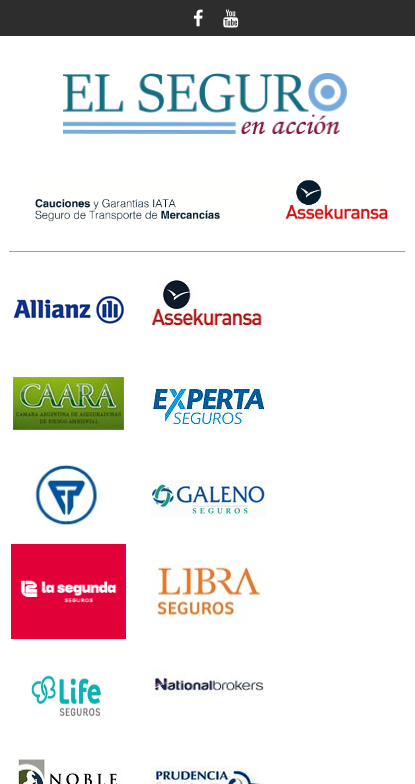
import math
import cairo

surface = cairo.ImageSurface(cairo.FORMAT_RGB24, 415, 784)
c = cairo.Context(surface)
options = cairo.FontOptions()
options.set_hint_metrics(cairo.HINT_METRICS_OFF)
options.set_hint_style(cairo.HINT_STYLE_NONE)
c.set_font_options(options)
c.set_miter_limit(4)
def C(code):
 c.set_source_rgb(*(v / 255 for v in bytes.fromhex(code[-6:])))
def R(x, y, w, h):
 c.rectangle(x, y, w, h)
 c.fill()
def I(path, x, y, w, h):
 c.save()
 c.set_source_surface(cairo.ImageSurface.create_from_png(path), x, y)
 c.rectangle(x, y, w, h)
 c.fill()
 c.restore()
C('ffffff')
c.paint()
C('2d2d2d')
R(0,0,415,36)
I('1.png',193,9,10,18)
I('2.png',223,9,16,19)
I('3.png',63,73,284,61)
I('4.png',35,179,353,43)
C('9f9f9f')
R(9,251,397,1)
C('eeeeee')
R(405,251,1,1)
I('5.png',12,295,112,29)
I('6.png',151,275,114,64)
I('7.png',11,370,115,64)
I('8.png',151,386,115,40)
I('9.png',30,464,76,64)
I('10.png',151,481,115,40)
I('11.png',11,544,115,95)
I('12.png',151,560,112,63)
I('13.png',31,674,70,43)
I('14.png',151,668,113,29)
I('15.png',16,759,106,25)
I('16.png',151,766,115,18)
surface.write_to_png('o.png')
